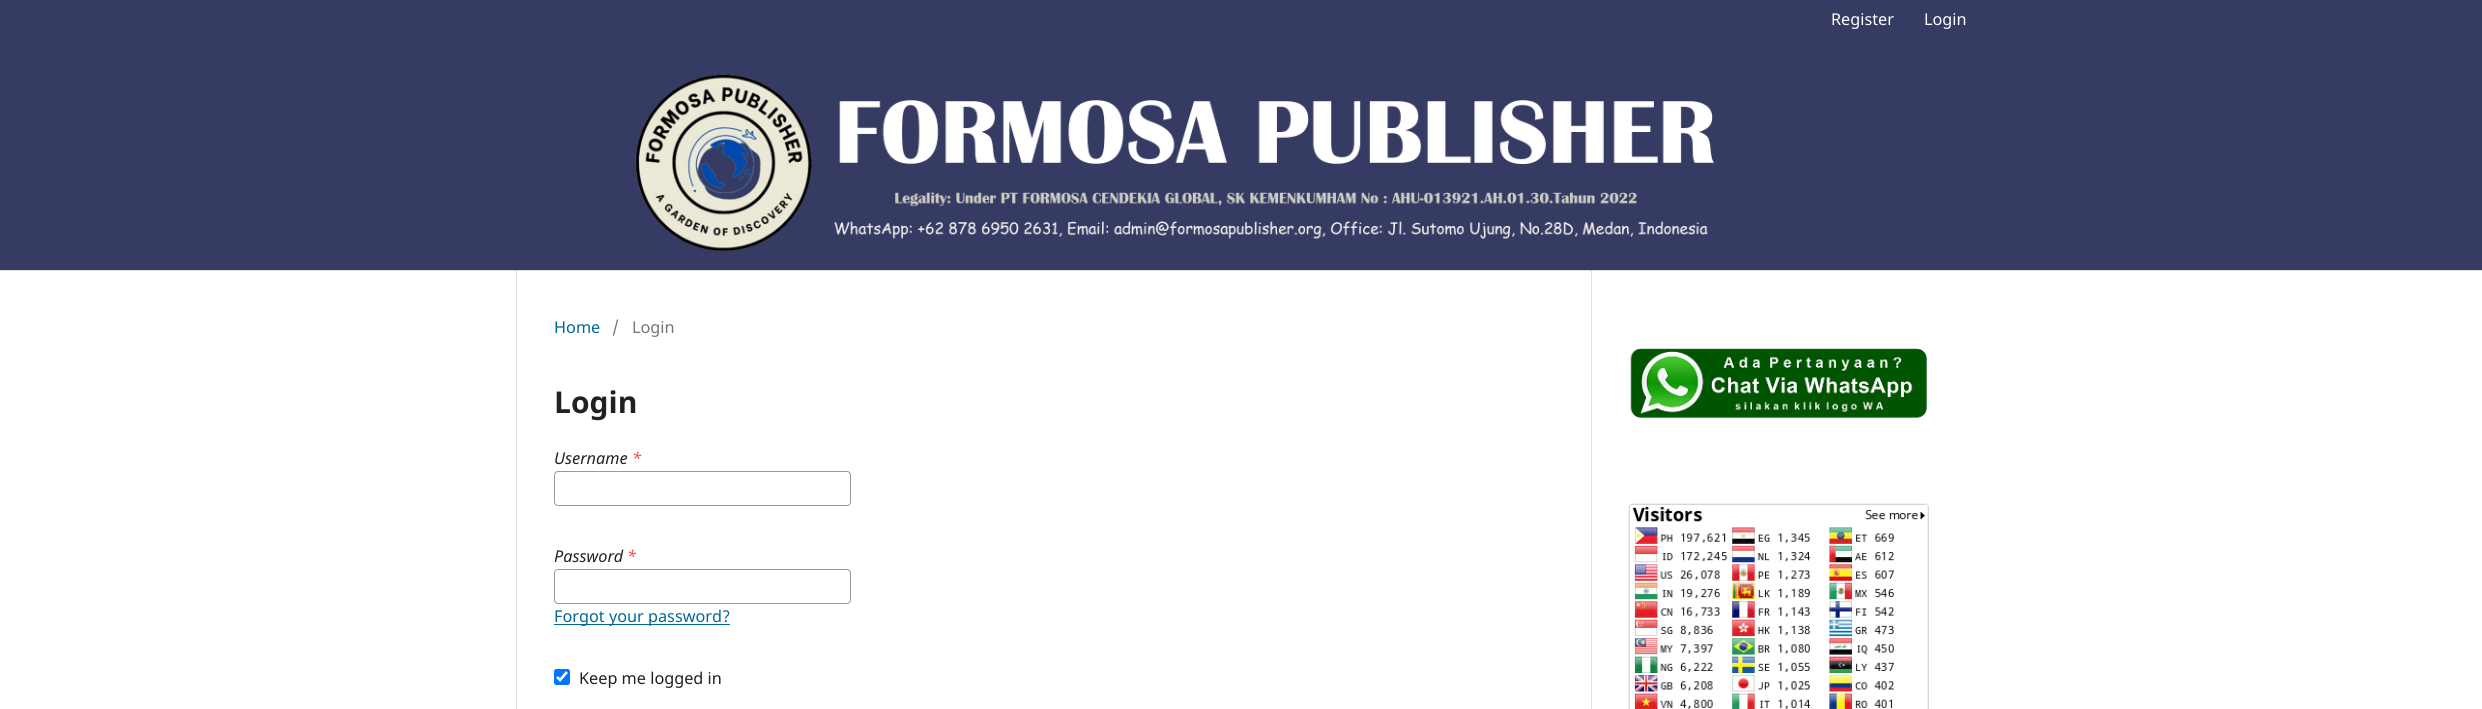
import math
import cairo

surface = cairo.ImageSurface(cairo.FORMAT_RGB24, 2482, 709)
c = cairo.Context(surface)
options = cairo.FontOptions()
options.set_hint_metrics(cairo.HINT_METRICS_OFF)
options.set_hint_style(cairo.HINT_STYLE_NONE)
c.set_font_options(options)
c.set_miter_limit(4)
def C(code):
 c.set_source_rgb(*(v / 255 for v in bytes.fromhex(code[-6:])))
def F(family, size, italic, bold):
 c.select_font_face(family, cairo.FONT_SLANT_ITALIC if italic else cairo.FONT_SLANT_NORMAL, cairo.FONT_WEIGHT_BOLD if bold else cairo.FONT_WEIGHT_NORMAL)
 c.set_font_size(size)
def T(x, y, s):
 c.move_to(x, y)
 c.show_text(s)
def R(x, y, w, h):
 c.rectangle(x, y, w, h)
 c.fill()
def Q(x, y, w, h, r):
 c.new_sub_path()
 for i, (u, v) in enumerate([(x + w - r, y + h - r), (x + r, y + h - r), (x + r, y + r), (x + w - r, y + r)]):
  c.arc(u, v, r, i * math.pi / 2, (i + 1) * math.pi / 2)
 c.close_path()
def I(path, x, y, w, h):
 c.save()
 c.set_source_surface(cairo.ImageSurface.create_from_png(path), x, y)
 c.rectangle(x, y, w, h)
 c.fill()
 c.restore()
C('ffffff')
c.paint()
C('363b63')
R(0,0,2482,270)
C('dddddd')
R(0,270,2482,1)
F('Noto Sans',16.25,0,0)
C('ffffff')
T(1831,25,'Register')
T(1924,25,'Login')
I('1.png',635,74,1079,178)
C('dddddd')
R(516,271,1,438)
C('006798')
T(554,333,'Home')
C('757575')
T(612,333,'/')
T(632,333,'Login')
F('Noto Sans',30,0,1)
C('212121')
T(554,413,'Login')
F('Noto Sans',16.25,1,0)
T(554,464,'Username')
C('ff4040')
T(632,464,'*')
Q(554.5,471.5,296,34,3.5)
C('999999')
c.set_line_width(1)
c.stroke()
C('212121')
T(554,562,'Password')
C('ff4040')
T(627,562,'*')
Q(554.5,569.5,296,34,3.5)
C('999999')
c.stroke()
C('006798')
R(554,624,176,1)
F('Noto Sans',16.25,0,0)
T(554,622,'Forgot your password?')
C('0075ff')
Q(554,669,16,16,2.5)
c.fill()
c.new_path()
c.move_to(557,677)
c.line_to(560,680)
c.line_to(567,672)
C('ffffff')
c.set_line_width(2.6)
c.stroke()
C('212121')
T(579,684,'Keep me logged in')
C('dddddd')
R(1591,271,1,438)
I('2.png',1630,348,297,70)
I('3.png',1628,503,301,206)
surface.write_to_png('o.png')
